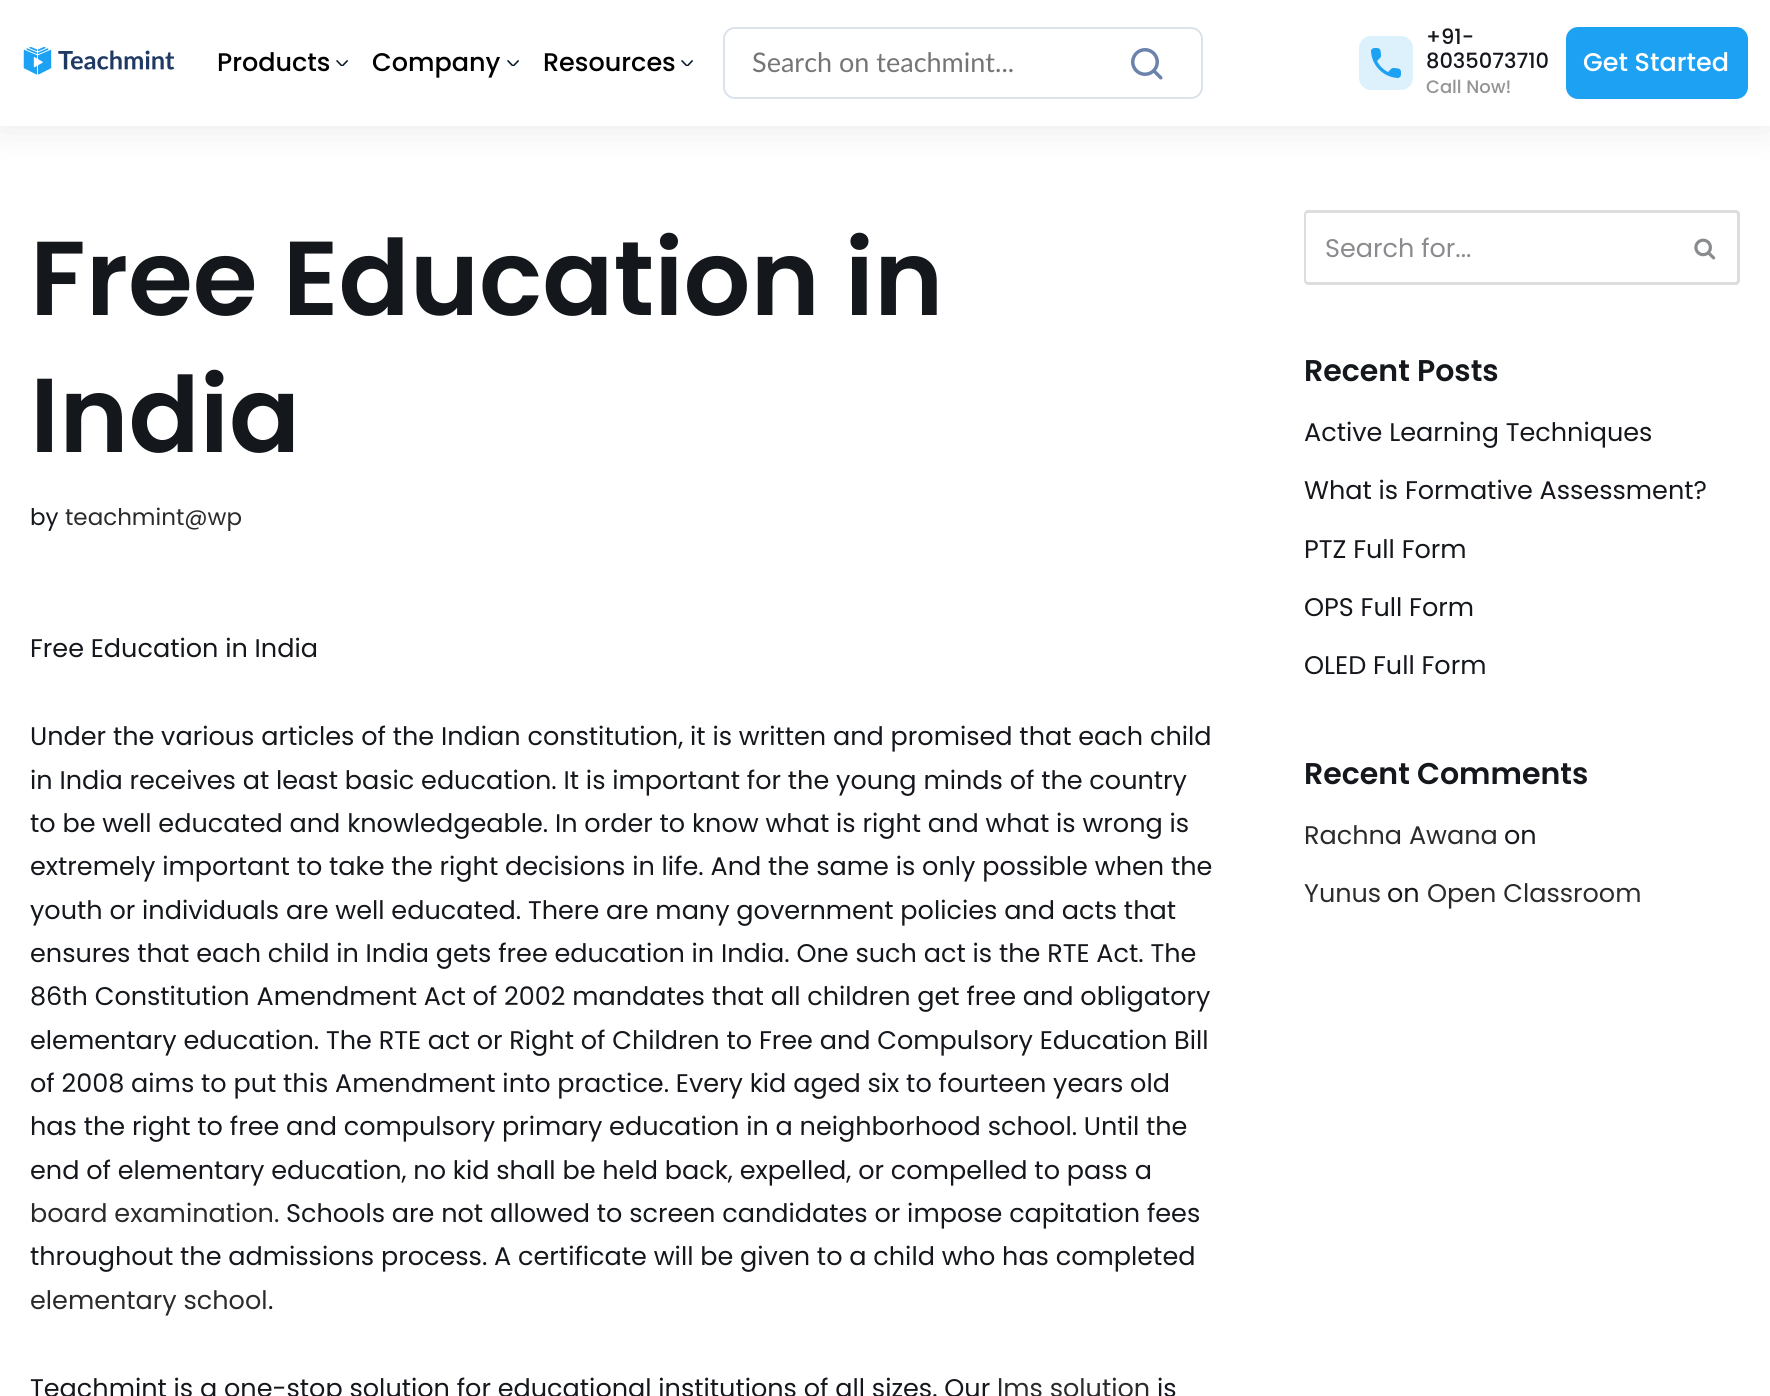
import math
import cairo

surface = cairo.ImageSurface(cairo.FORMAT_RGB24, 1770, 1396)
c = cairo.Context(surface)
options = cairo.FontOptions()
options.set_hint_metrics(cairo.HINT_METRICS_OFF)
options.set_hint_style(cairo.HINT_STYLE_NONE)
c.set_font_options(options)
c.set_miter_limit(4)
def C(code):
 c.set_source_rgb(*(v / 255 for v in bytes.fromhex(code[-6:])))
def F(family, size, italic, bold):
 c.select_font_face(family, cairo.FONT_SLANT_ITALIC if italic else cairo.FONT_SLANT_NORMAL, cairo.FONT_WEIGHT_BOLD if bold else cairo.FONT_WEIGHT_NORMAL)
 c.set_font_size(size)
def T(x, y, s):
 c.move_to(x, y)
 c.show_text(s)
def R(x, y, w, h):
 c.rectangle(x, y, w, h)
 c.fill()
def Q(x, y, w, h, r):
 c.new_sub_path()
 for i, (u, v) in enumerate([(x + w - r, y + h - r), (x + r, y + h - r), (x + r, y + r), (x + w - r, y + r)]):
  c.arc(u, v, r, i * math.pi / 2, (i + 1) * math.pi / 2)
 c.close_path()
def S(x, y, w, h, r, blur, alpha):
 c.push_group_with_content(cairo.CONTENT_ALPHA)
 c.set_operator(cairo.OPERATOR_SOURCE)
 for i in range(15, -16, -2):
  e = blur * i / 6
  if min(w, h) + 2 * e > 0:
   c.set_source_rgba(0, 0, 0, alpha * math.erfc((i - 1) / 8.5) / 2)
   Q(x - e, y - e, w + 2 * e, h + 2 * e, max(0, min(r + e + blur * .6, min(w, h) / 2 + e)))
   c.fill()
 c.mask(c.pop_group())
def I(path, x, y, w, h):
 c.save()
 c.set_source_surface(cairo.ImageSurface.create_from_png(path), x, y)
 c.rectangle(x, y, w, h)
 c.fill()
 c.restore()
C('ffffff')
c.paint()
C('000000')
S(0,5,1770,120,0,19.5,.1)
C('ffffff')
R(0,0,1770,126)
I('1.png',23,47,152,28)
F('Poppins Medium',25.5,0,0)
C('000000')
T(217,71,'Products')
I('2.png',336,60,12,6)
T(372,71,'Company')
I('2.png',507,60,12,6)
T(543,71,'Resources')
I('2.png',681,60,12,6)
Q(724,28,478,70,11)
C('dbe2ea')
c.stroke()
F('Lato',27,0,0)
C('757575')
T(752,72,'Search on teachmint...')
I('3.png',1131,48,32,32)
I('4.png',1359,36,54,54)
F('Poppins Medium',21,0,0)
C('14171c')
T(1426,44,'+91-')
T(1426,68,'8035073710')
F('Poppins Medium',18,0,0)
C('949494')
T(1426,93,'Call Now!')
C('1da1f2')
Q(1566,27,182,72,12)
c.fill()
F('Poppins Medium',25.5,0,0)
C('ffffff')
T(1583,71,'Get Started')
F('Poppins SemiBold',105,0,0)
C('14171c')
T(30,315,'Free Education in')
T(30,452,'India')
F('Poppins',23,0,0)
T(30,525,'by')
C('2b2b2b')
T(65,525,'teachmint@wp')
F('Poppins',25.5,0,0)
C('14171c')
T(30,657,'Free Education in India')
T(30,745,'Under the various articles of the Indian constitution, it is written and promised that each child')
T(30,789,'in India receives at least basic education. It is important for the young minds of the country')
T(30,832,'to be well educated and knowledgeable. In order to know what is right and what is wrong is')
T(30,875,'extremely important to take the right decisions in life. And the same is only possible when the')
T(30,919,'youth or individuals are well educated. There are many government policies and acts that')
T(30,962,'ensures that each child in India gets free education in India. One such act is the RTE Act. The')
T(30,1005,'86th Constitution Amendment Act of 2002 mandates that all children get free and obligatory')
T(30,1049,'elementary education. The RTE act or Right of Children to Free and Compulsory Education Bill')
T(30,1092,'of 2008 aims to put this Amendment into practice. Every kid aged six to fourteen years old')
T(30,1135,'has the right to free and compulsory primary education in a neighborhood school. Until the')
T(30,1179,'end of elementary education, no kid shall be held back, expelled, or compelled to pass a')
C('2b2b2b')
T(30,1222,'board examination.')
C('14171c')
T(286,1222,'Schools are not allowed to screen candidates or impose capitation fees')
T(30,1265,'throughout the admissions process. A certificate will be given to a child who has completed')
C('2b2b2b')
T(30,1309,'elementary school')
C('14171c')
T(268,1309,'.')
T(30,1397,'Teachmint is a one-stop solution for educational institutions of all sizes. Our')
C('2b2b2b')
T(997,1397,'lms solution')
C('14171c')
T(1157,1397,'is')
C('dddddd')
c.set_fill_rule(cairo.FILL_RULE_EVEN_ODD)
c.new_path()
c.move_to(1308,210)
c.line_to(1672,210)
c.line_to(1672,285)
c.line_to(1308,285)
c.curve_to(1306,285,1304,283,1304,280)
c.line_to(1304,214)
c.curve_to(1304,212,1306,210,1308,210)
c.close_path()
c.move_to(1308,213)
c.line_to(1672,213)
c.line_to(1672,282)
c.line_to(1308,282)
c.curve_to(1307,282,1306,281,1306,280)
c.line_to(1306,214)
c.curve_to(1306,214,1307,213,1308,213)
c.close_path()
c.fill()
C('8a8b8e')
T(1325,257,'Search for...')
C('dddddd')
c.new_path()
c.move_to(1672,210)
c.line_to(1736,210)
c.curve_to(1738,210,1740,212,1740,214)
c.line_to(1740,280)
c.curve_to(1740,283,1738,285,1736,285)
c.line_to(1672,285)
c.close_path()
c.move_to(1672,213)
c.line_to(1736,213)
c.curve_to(1736,213,1737,214,1737,214)
c.line_to(1737,280)
c.curve_to(1737,281,1736,282,1736,282)
c.line_to(1672,282)
c.close_path()
c.fill()
I('5.png',1694,238,22,22)
F('Poppins SemiBold',30,0,0)
C('14171c')
T(1304,381,'Recent Posts')
F('Poppins',25.5,0,0)
T(1304,441,'Active Learning Techniques')
T(1304,499,'What is Formative Assessment?')
T(1304,558,'PTZ Full Form')
T(1304,616,'OPS Full Form')
T(1304,674,'OLED Full Form')
F('Poppins SemiBold',30,0,0)
T(1304,784,'Recent Comments')
F('Poppins',25.5,0,0)
C('2b2b2b')
T(1304,844,'Rachna Awana')
C('14171c')
T(1504,844,'on')
C('2b2b2b')
T(1304,902,'Yunus')
C('14171c')
T(1387,902,'on')
C('2b2b2b')
T(1427,902,'Open Classroom')
surface.write_to_png('o.png')
